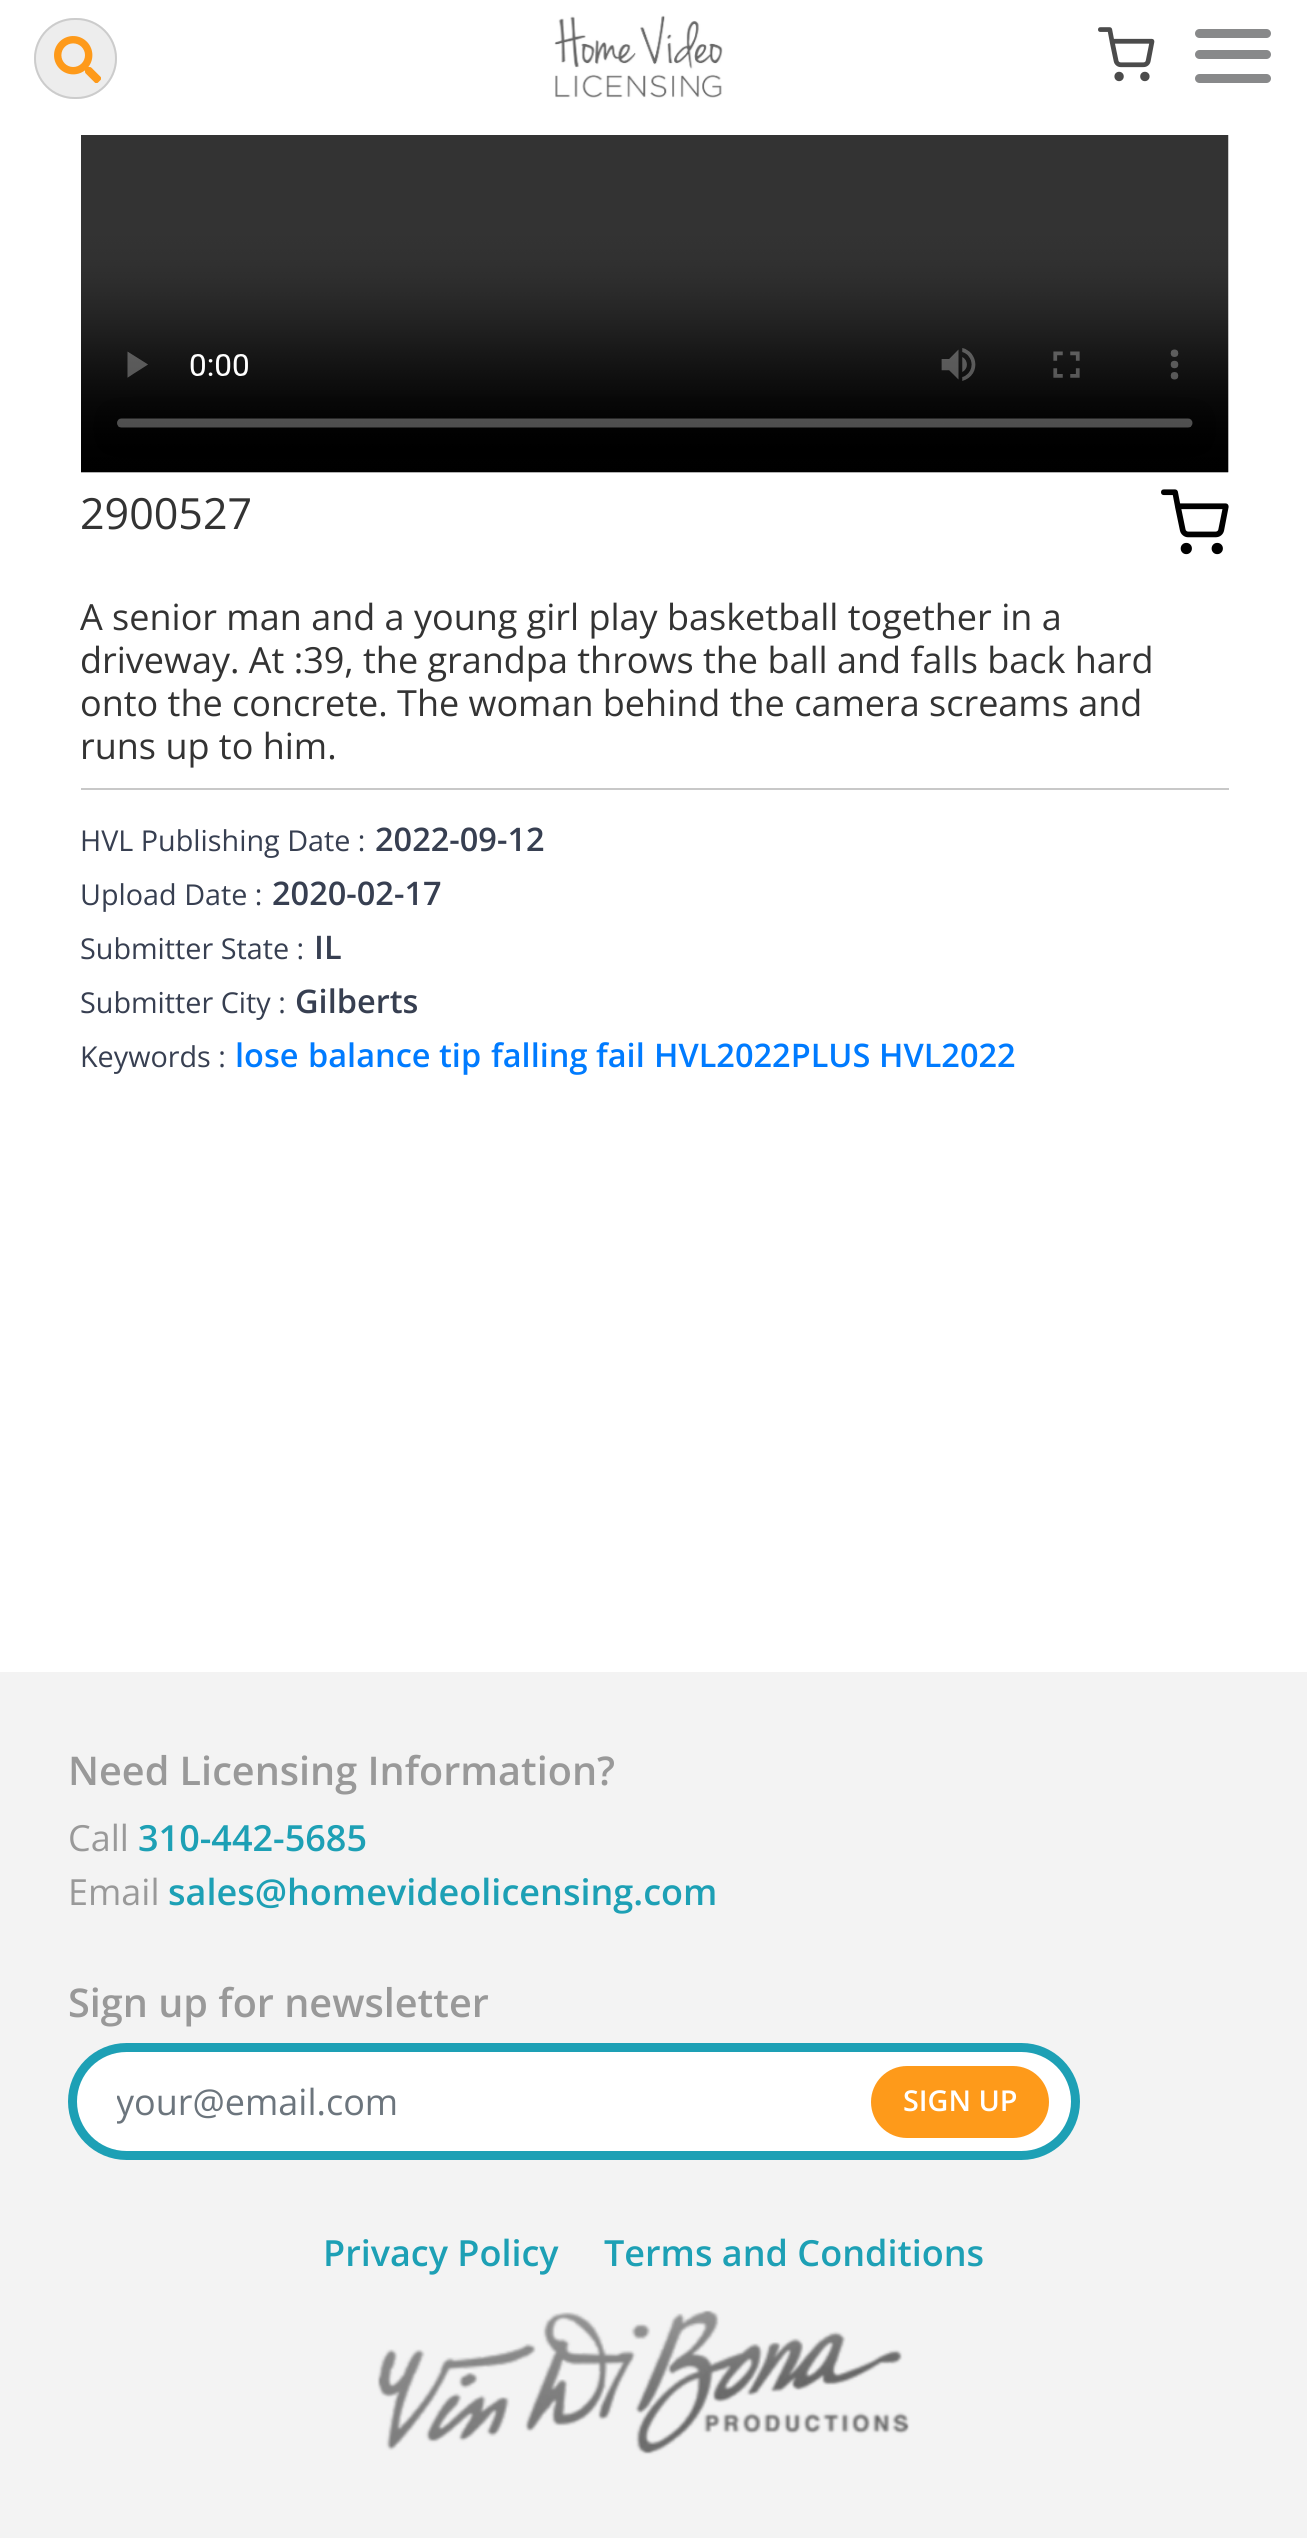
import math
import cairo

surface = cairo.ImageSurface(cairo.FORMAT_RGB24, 1307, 2538)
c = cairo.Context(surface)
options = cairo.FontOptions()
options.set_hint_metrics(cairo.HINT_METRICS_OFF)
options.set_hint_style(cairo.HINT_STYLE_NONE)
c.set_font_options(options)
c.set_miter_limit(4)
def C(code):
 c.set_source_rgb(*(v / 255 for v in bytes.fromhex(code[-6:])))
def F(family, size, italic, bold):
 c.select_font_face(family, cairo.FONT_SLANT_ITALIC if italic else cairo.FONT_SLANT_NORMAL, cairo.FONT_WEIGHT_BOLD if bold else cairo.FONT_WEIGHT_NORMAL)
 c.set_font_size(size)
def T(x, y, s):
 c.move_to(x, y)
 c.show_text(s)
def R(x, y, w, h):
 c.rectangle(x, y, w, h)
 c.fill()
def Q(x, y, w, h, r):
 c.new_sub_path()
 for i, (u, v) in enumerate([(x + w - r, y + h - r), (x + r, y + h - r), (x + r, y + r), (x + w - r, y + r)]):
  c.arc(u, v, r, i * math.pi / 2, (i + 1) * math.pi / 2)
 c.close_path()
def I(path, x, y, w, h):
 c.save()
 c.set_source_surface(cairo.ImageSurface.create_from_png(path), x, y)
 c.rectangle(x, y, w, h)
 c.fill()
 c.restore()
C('ffffff')
c.paint()
C('ededed')
Q(34,18,83,81,40.5)
c.fill()
I('1.png',54,36,47,47)
Q(35,19,81,79,39.5)
C('cccccc')
c.stroke()
I('2.png',554,15,169,83)
I('3.png',1098,27,57,55)
C('88898a')
Q(1195,29,76,9,4.5)
c.fill()
Q(1195,50,76,9,4.5)
c.fill()
Q(1195,74,76,9,4.5)
c.fill()
I('4.png',81,135,1148,338)
F('Open Sans',43,0,0)
C('333333')
T(80,529,'2900527')
I('5.png',1161,489,68,66)
F('Open Sans',36,0,0)
T(80,630,'A senior man and a young girl play basketball together in a')
T(80,673,'driveway. At :39, the grandpa throws the ball and falls back hard')
T(80,716,'onto the concrete. The woman behind the camera screams and')
T(80,759,'runs up to him.')
C('c8c8c8')
R(81,788,1148,2)
F('Open Sans',28.75,0,0)
C('373f51')
T(80,851,'HVL Publishing Date :')
F('Open Sans SemiBold',32.5,0,0)
T(375,851,'2022-09-12')
F('Open Sans',28.75,0,0)
T(80,905,'Upload Date :')
F('Open Sans SemiBold',32.5,0,0)
T(272,905,'2020-02-17')
F('Open Sans',28.75,0,0)
T(80,959,'Submitter State :')
F('Open Sans SemiBold',32.5,0,0)
T(314,959,'IL')
F('Open Sans',28.75,0,0)
T(80,1013,'Submitter City :')
F('Open Sans SemiBold',32.5,0,0)
T(295,1013,'Gilberts')
F('Open Sans',28.75,0,0)
T(80,1067,'Keywords :')
F('Open Sans SemiBold',32.5,0,0)
C('007bff')
T(235,1067,'lose')
T(308,1067,'balance')
T(439,1067,'tip')
T(491,1067,'falling')
T(596,1067,'fail')
T(654,1067,'HVL2022PLUS')
T(879,1067,'HVL2022')
C('f3f3f3')
R(0,1672,1307,866)
F('Open Sans SemiBold',39.6,0,0)
C('999999')
T(68,1785,'Need Licensing Information?')
F('Open Sans',36,0,0)
T(68,1851,'Call')
F('Open Sans SemiBold',36,0,0)
C('1da0b5')
T(138,1851,'310-442-5685')
F('Open Sans',36,0,0)
C('999999')
T(68,1905,'Email')
F('Open Sans SemiBold',36,0,0)
C('1da0b5')
T(168,1905,'sales@homevideolicensing.com')
F('Open Sans SemiBold',39.6,0,0)
C('999999')
T(68,2017,'Sign up for newsletter')
C('ffffff')
Q(72.5,2047.5,1003,108,54)
c.fill_preserve()
C('1da0b5')
c.set_line_width(9)
c.stroke()
c.save()
c.rectangle(117,2077,727,49)
c.clip()
F('Open Sans',36,0,0)
C('6c757d')
T(116,2115,'your@email.com')
c.restore()
C('fe9a1a')
Q(875.5,2070.5,169,63,31.5)
c.fill_preserve()
c.stroke()
F('Open Sans SemiBold',28.75,0,0)
C('ffffff')
T(903,2111,'SIGN UP')
F('Open Sans SemiBold',36,0,0)
C('1da0b5')
T(323,2266,'Privacy Policy')
T(604,2266,'Terms and Conditions')
I('6.png',377,2310,533,145)
surface.write_to_png('o.png')
